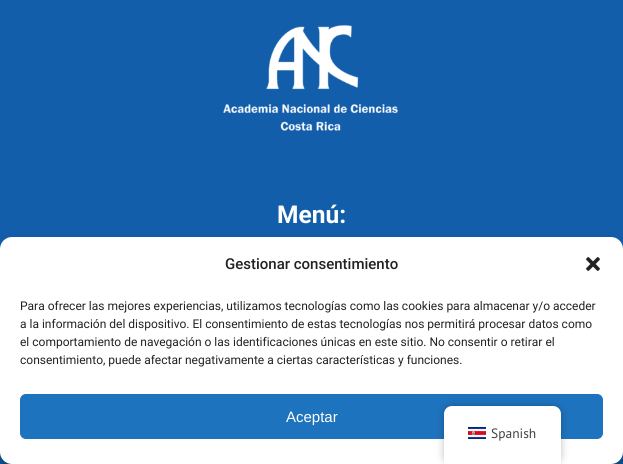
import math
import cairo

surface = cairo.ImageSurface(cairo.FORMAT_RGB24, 623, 464)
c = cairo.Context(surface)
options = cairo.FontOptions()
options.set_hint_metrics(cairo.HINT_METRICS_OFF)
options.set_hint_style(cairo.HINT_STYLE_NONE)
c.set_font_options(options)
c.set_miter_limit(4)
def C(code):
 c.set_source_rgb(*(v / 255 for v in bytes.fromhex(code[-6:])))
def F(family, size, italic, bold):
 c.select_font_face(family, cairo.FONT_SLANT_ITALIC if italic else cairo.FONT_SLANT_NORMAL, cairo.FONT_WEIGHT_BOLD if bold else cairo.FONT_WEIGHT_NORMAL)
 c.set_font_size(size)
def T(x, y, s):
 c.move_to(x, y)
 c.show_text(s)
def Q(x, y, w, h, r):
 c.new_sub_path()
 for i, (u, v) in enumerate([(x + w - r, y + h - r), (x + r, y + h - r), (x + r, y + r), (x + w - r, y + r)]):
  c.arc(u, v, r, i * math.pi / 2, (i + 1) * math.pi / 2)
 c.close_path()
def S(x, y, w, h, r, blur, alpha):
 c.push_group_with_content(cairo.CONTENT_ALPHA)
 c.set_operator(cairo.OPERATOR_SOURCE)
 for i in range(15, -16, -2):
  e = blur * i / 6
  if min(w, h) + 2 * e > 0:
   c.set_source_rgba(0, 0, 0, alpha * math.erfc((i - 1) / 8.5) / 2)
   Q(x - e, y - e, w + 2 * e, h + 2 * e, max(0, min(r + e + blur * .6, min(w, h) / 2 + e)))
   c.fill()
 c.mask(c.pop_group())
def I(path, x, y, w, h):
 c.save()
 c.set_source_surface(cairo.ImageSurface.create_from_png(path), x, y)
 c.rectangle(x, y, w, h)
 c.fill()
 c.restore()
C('135eab')
c.paint()
I('1.png',223,25,175,106)
F('Roboto',24.5,0,1)
C('ffffff')
T(277,223,'Menú:')
C('000000')
S(0,243,623,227,12,3,.23)
S(0,247,623,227,12,10,.19)
C('ffffff')
Q(0,237,623,227,12)
c.fill()
F('Roboto Medium',15,0,0)
C('222222')
T(225,269,'Gestionar consentimiento')
I('2.png',586,257,14,14)
F('Roboto',12,0,0)
T(20,310,'Para ofrecer las mejores experiencias, utilizamos tecnologías como las cookies para almacenar y/o acceder')
T(20,328,'a la información del dispositivo. El consentimiento de estas tecnologías nos permitirá procesar datos como')
T(20,346,'el comportamiento de navegación o las identificaciones únicas en este sitio. No consentir o retirar el')
T(20,364,'consentimiento, puede afectar negativamente a ciertas características y funciones.')
C('1e73be')
Q(20.5,394.5,582,44,5.5)
c.fill_preserve()
c.set_line_width(1)
c.stroke()
F('Liberation Sans',15,0,0)
C('ffffff')
T(286,422,'Aceptar')
C('000000')
S(444,406,117,58,8,4,.25)
C('ffffff')
c.new_path()
c.move_to(452,406)
c.line_to(553,406)
c.curve_to(557.5,406,561,409.5,561,414)
c.line_to(561,464)
c.line_to(444,464)
c.line_to(444,414)
c.curve_to(444,409.5,447.5,406,452,406)
c.close_path()
c.fill()
I('3.png',468,427,18,12)
F('PT Sans',13.5,0,0)
C('404040')
T(491,438,'Spanish')
surface.write_to_png('o.png')
